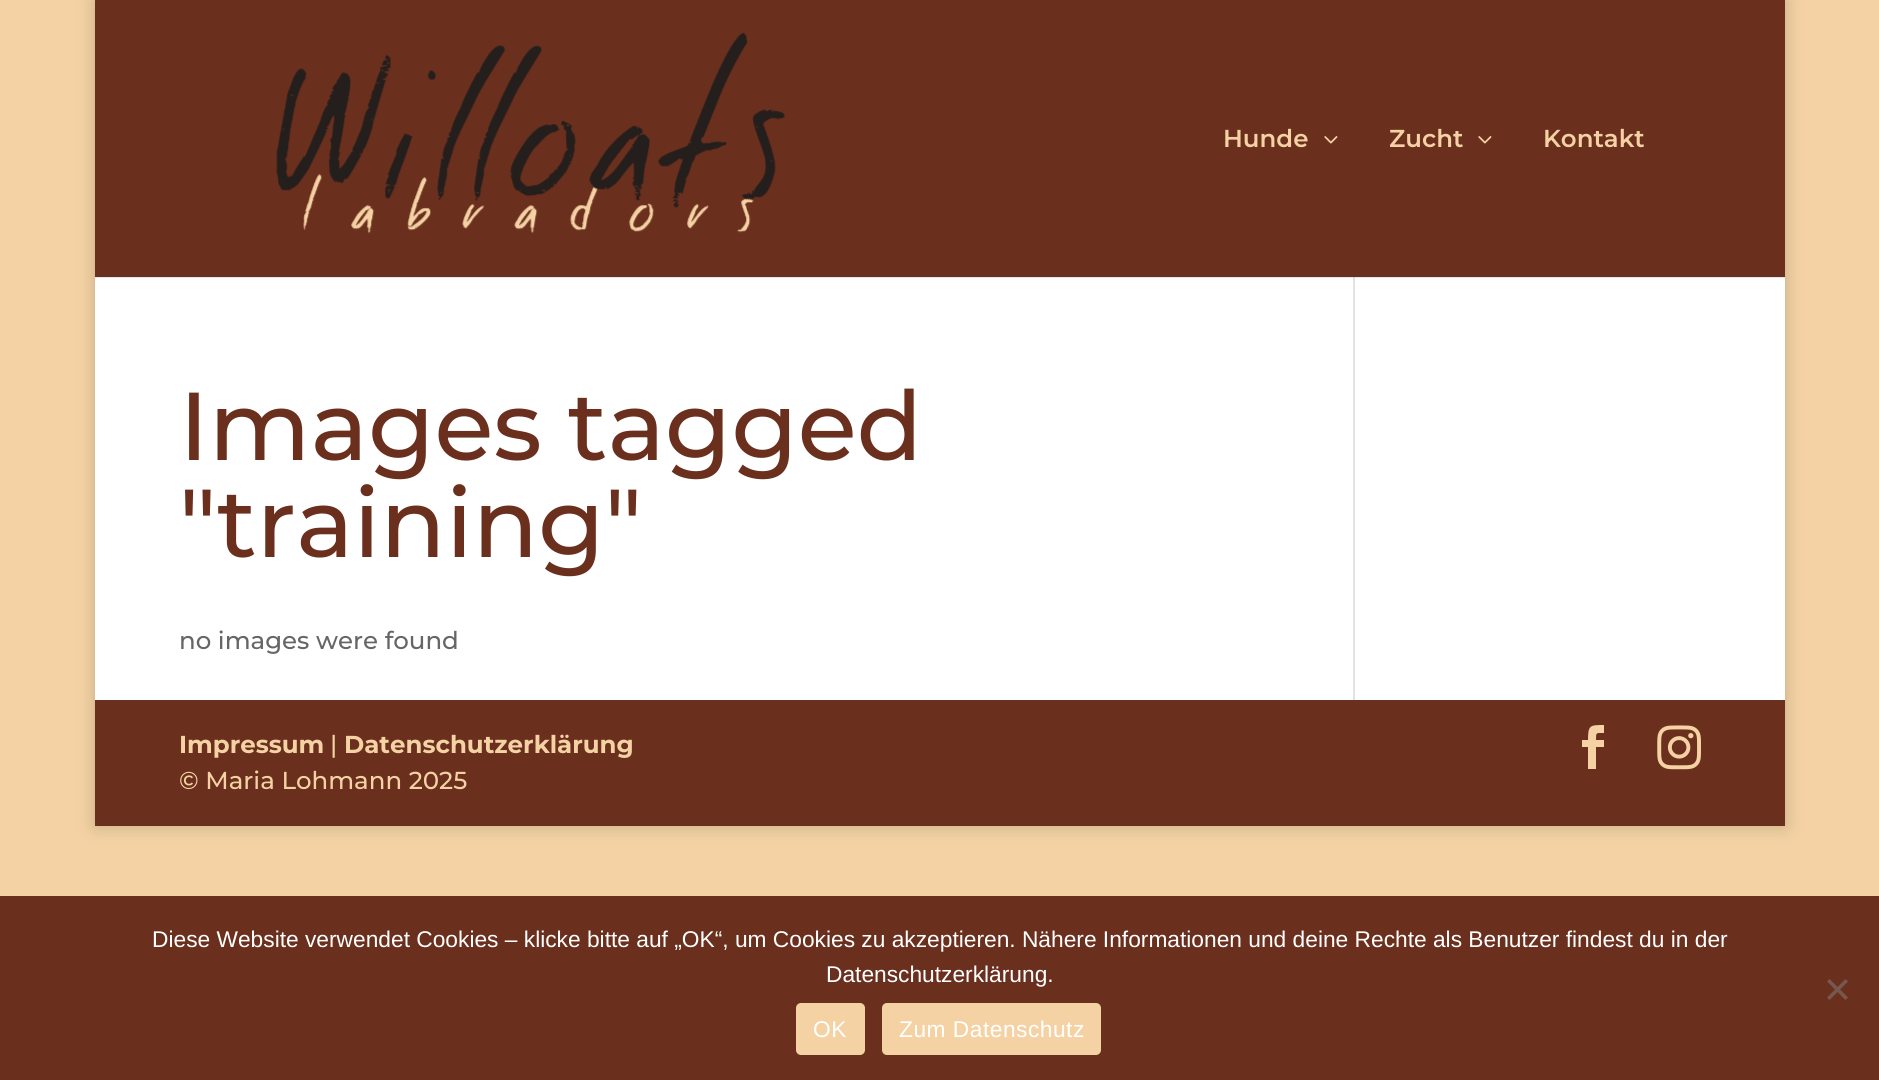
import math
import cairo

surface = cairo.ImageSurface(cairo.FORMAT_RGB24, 1879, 1080)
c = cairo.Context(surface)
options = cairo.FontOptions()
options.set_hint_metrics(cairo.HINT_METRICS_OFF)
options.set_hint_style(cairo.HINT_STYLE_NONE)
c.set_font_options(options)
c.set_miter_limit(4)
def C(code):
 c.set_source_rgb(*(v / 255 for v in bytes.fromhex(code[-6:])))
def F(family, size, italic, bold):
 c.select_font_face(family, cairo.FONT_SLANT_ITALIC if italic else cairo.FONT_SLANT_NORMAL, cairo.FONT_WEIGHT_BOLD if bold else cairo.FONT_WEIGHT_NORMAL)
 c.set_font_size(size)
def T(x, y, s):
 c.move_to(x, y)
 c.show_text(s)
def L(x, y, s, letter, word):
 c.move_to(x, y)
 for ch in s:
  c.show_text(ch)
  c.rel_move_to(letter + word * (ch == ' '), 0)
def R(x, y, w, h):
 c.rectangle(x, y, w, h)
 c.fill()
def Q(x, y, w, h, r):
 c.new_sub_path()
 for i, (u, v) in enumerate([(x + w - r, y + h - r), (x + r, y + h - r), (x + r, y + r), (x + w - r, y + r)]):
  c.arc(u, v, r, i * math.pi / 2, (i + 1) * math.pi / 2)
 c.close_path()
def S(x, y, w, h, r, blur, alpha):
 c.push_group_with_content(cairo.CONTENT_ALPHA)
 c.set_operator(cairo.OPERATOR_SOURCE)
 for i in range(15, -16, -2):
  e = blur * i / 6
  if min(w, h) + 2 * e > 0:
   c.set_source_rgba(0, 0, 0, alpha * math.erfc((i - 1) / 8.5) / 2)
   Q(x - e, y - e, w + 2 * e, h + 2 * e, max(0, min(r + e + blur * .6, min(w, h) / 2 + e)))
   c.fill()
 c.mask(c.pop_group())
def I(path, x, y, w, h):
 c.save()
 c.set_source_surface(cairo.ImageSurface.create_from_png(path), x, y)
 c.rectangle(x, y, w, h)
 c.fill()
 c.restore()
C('f4d2a4')
c.paint()
C('000000')
S(95,0,1690,826,0,9,.2)
C('6b2f1e')
R(95,0,1690,277)
I('1.png',276,32,510,202)
F('Montserrat SemiBold',24.5,0,0)
C('f4d2a4')
T(1223,147,'Hunde')
I('2.png',1324,136,14,8)
T(1389,147,'Zucht')
I('2.png',1478,136,14,8)
T(1543,147,'Kontakt')
C('ffffff')
R(95,278,1690,422)
C('e6e6e6')
R(95,277,1690,1)
F('Montserrat Medium',96.25,0,0)
C('6b2f1e')
T(179,460,'Images tagged')
T(179,557,'"training"')
F('Montserrat Medium',24.5,0,0)
C('666666')
T(179,649,'no images were found')
C('e2e2e2')
R(1353,277,2,423)
C('cbcbcb')
R(1353,277,2,1)
C('6b2f1e')
R(95,700,1690,126)
F('Montserrat',24.5,0,1)
C('f4d2a4')
T(179,753,'Impressum')
F('Montserrat Medium',24.5,0,0)
T(330,753,'|')
F('Montserrat',24.5,0,1)
T(344,753,'Datenschutzerklärung')
F('Montserrat Medium',24.5,0,0)
T(179,789,'© Maria Lohmann 2025')
c.new_path()
c.move_to(1588,769)
c.line_to(1596,769)
c.line_to(1596,747)
c.line_to(1604,747)
c.line_to(1604,740)
c.line_to(1596,740)
c.curve_to(1596,732,1596,733,1604,733)
c.line_to(1604,725)
c.curve_to(1590,725,1588,725,1588,740)
c.line_to(1582,740)
c.line_to(1582,747)
c.line_to(1588,747)
c.close_path()
c.fill()
I('3.png',1657,725,44,45)
C('6b2f1e')
R(0,896,1879,184)
F('Liberation Sans',22.75,0,0)
C('ffffff')
T(152,947,'Diese Website verwendet Cookies – klicke bitte auf „OK“, um Cookies zu akzeptieren. Nähere Informationen und deine Rechte als Benutzer findest du in der')
T(826,982,'Datenschutzerklärung.')
C('76584f')
c.new_path()
c.move_to(1845.5,979)
c.line_to(1848,981.5)
c.line_to(1829.5,1000)
c.line_to(1827,997.5)
c.close_path()
c.fill()
c.new_path()
c.move_to(1827,981.5)
c.line_to(1829.5,979)
c.line_to(1848,997.5)
c.line_to(1845.5,1000)
c.close_path()
c.fill()
C('f4d2a4')
Q(796,1003,69,52,5)
c.fill()
C('ffffff')
L(813,1037,'OK',.5,0)
C('f4d2a4')
Q(882,1003,219,52,5)
c.fill()
C('ffffff')
L(899,1037,'Zum Datenschutz',.5,0)
surface.write_to_png('o.png')
